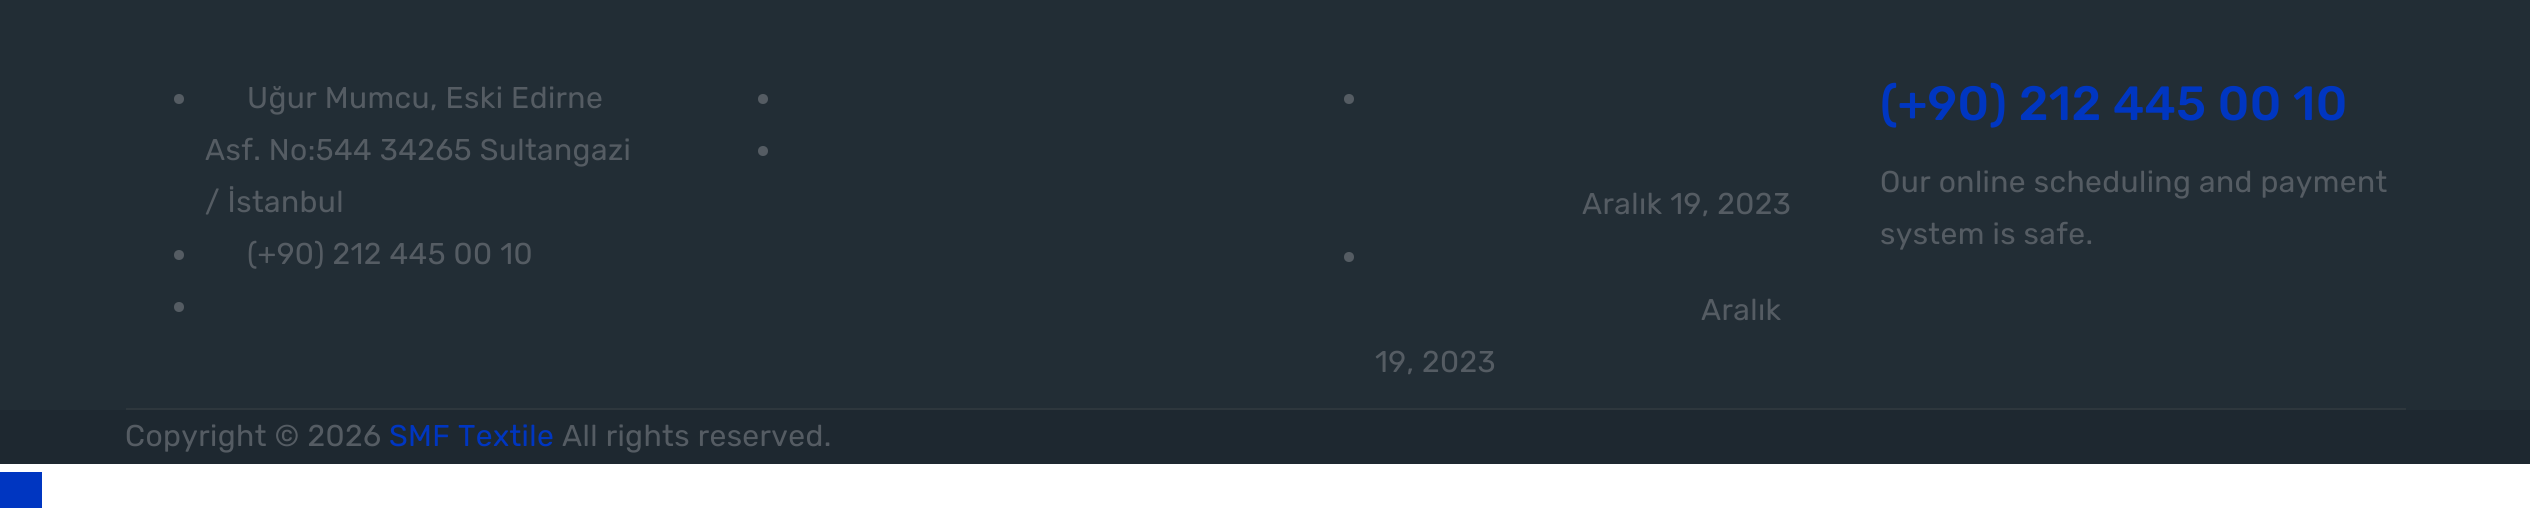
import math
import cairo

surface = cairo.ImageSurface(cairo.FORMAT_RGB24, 2530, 516)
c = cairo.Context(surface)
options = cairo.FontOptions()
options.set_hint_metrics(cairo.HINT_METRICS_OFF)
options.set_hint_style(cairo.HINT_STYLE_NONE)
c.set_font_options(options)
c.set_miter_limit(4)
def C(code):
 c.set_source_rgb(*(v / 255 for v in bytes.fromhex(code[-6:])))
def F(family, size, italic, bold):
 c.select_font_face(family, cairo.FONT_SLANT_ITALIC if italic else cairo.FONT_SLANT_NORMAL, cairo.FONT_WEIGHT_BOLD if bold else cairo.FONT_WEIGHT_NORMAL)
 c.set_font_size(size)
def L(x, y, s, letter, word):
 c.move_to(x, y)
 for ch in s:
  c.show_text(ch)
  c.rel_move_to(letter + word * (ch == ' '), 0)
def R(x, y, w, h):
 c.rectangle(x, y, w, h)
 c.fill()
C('ffffff')
c.paint()
C('222d35')
R(0,0,2530,410)
C('555c63')
c.arc(179,99,5,0,2 * math.pi)
c.fill()
F('Rubik',30,0,0)
L(247,108,'Uğur Mumcu, Eski Edirne',.4,0)
L(205,160,'Asf. No:544 34265 Sultangazi',.4,0)
L(205,212,'/ İstanbul',.4,0)
c.new_path()
c.arc(179,255,5,0,2 * math.pi)
c.fill()
L(247,264,'(+90) 212 445 00 10',.4,0)
c.new_path()
c.arc(179,307,5,0,2 * math.pi)
c.fill()
c.arc(763,99,5,0,2 * math.pi)
c.fill()
c.arc(763,151,5,0,2 * math.pi)
c.fill()
F('Rubik Medium',48,0,0)
C('0036c1')
L(1880,120,'(+90) 212 445 00 10',.4,0)
F('Rubik',30,0,0)
C('555c63')
L(1880,192,'Our online scheduling and payment',.4,0)
L(1880,244,'system is safe.',.4,0)
c.new_path()
c.arc(1349,99,5,0,2 * math.pi)
c.fill()
L(1582,214,'Aralık 19, 2023',.4,0)
c.new_path()
c.arc(1349,257,5,0,2 * math.pi)
c.fill()
L(1701,320,'Aralık',.4,0)
L(1375,372,'19, 2023',.4,0)
C('2e373d')
R(126,408,2280,2)
C('1e2830')
R(0,410,2530,54)
C('555c63')
L(125,446,'Copyright © 2026',.4,0)
C('0036c1')
L(389,446,'SMF Textile',.4,0)
C('555c63')
L(562,446,'All rights reserved.',.4,0)
C('0036c1')
R(0,472,42,36)
surface.write_to_png('o.png')
